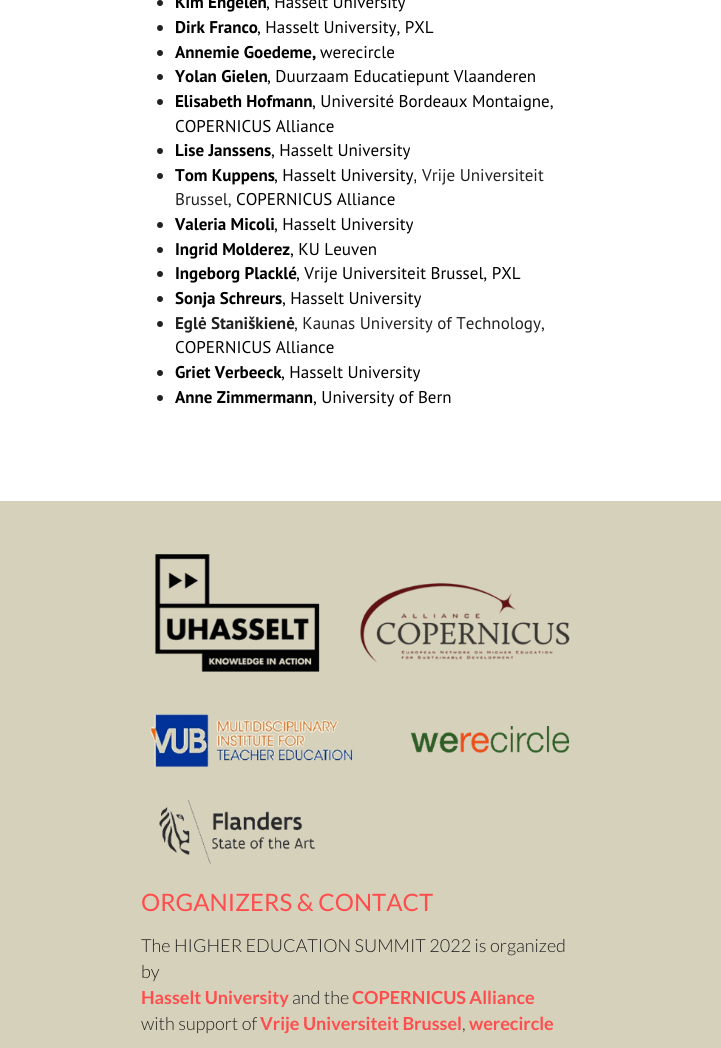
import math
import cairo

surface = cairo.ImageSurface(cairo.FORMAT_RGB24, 721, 1048)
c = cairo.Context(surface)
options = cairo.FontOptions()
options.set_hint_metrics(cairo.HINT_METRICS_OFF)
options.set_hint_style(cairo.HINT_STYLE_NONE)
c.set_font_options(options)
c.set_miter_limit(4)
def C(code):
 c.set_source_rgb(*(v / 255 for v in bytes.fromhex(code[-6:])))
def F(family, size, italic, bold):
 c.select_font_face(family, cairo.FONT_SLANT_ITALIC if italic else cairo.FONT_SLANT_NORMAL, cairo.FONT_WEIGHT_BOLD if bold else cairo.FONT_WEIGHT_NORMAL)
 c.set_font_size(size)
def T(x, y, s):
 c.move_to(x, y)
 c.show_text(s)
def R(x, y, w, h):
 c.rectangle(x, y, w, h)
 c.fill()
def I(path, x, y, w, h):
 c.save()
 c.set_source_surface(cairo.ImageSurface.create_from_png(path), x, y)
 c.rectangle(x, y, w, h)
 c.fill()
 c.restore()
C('ffffff')
c.paint()
C('222222')
c.arc(160,3,3,0,2 * math.pi)
c.fill()
F('PT Sans',17,0,1)
C('000000')
T(175,8,'Kim Engelen')
F('PT Sans',17,0,0)
T(266,8,', Hasselt University')
C('222222')
c.new_path()
c.arc(160,28,3,0,2 * math.pi)
c.fill()
F('PT Sans',17,0,1)
C('000000')
T(175,33,'Dirk Franco')
F('PT Sans',17,0,0)
T(257,33,', Hasselt University, PXL')
C('222222')
c.new_path()
c.arc(160,53,3,0,2 * math.pi)
c.fill()
F('PT Sans',17,0,1)
C('000000')
T(175,58,'Annemie Goedeme,')
F('PT Sans',17,0,0)
T(320,58,'werecircle')
C('222222')
c.new_path()
c.arc(160,77,3,0,2 * math.pi)
c.fill()
F('PT Sans',17,0,1)
C('000000')
T(175,82,'Yolan Gielen')
F('PT Sans',17,0,0)
T(267,82,', Duurzaam Educatiepunt Vlaanderen')
C('222222')
c.new_path()
c.arc(160,102,3,0,2 * math.pi)
c.fill()
F('PT Sans',17,0,1)
C('000000')
T(175,107,'Elisabeth Hofmann')
F('PT Sans',17,0,0)
T(312,107,', Université Bordeaux Montaigne,')
T(175,132,'COPERNICUS Alliance')
C('222222')
c.new_path()
c.arc(160,151,3,0,2 * math.pi)
c.fill()
F('PT Sans',17,0,1)
C('000000')
T(175,156,'Lise Janssens')
F('PT Sans',17,0,0)
T(271,156,', Hasselt University')
C('222222')
c.new_path()
c.arc(160,176,3,0,2 * math.pi)
c.fill()
F('PT Sans',17,0,1)
C('000000')
T(175,181,'Tom Kuppens')
F('PT Sans',17,0,0)
T(274,181,', Hasselt University,')
C('212121')
T(422,181,'Vrije Universiteit')
T(175,205,'Brussel,')
C('000000')
T(236,205,'COPERNICUS Alliance')
C('222222')
c.new_path()
c.arc(160,225,3,0,2 * math.pi)
c.fill()
F('PT Sans',17,0,1)
C('000000')
T(175,230,'Valeria Micoli')
F('PT Sans',17,0,0)
T(274,230,', Hasselt University')
C('222222')
c.new_path()
c.arc(160,250,3,0,2 * math.pi)
c.fill()
F('PT Sans',17,0,1)
C('000000')
T(175,255,'Ingrid Molderez')
F('PT Sans',17,0,0)
T(290,255,', KU Leuven')
C('222222')
c.new_path()
c.arc(160,274,3,0,2 * math.pi)
c.fill()
F('PT Sans',17,0,1)
C('000000')
T(175,279,'Ingeborg Placklé')
F('PT Sans',17,0,0)
T(296,279,', Vrije Universiteit Brussel, PXL')
C('222222')
c.new_path()
c.arc(160,299,3,0,2 * math.pi)
c.fill()
F('PT Sans',17,0,1)
C('000000')
T(175,304,'Sonja Schreurs')
F('PT Sans',17,0,0)
T(282,304,', Hasselt University')
C('222222')
c.new_path()
c.arc(160,324,3,0,2 * math.pi)
c.fill()
F('PT Sans',17,0,1)
C('212121')
T(175,329,'Eglė Staniškienė')
F('PT Sans',17,0,0)
T(294,329,', Kaunas University of Technology,')
C('000000')
T(175,353,'COPERNICUS Alliance')
C('222222')
c.new_path()
c.arc(160,373,3,0,2 * math.pi)
c.fill()
F('PT Sans',17,0,1)
C('000000')
T(175,378,'Griet Verbeeck')
F('PT Sans',17,0,0)
T(281,378,', Hasselt University')
C('222222')
c.new_path()
c.arc(160,398,3,0,2 * math.pi)
c.fill()
F('PT Sans',17,0,1)
C('000000')
T(175,403,'Anne Zimmermann')
F('PT Sans',17,0,0)
T(313,403,', University of Bern')
C('d6d1bb')
R(0,501,721,547)
I('1.png',150,554,420,310)
F('Lato',24,0,0)
C('ff4d4d')
T(141,911,'ORGANIZERS & CONTACT')
F('Lato Light',18,0,0)
C('212121')
T(141,952,'The HIGHER EDUCATION SUMMIT 2022 is organized')
T(141,978,'by')
F('Lato',18,0,1)
C('ff4d4d')
T(141,1004,'Hasselt University')
F('Lato Light',18,0,0)
C('212121')
T(292,1004,'and the')
F('Lato',18,0,1)
C('ff4d4d')
T(352,1004,'COPERNICUS Alliance')
F('Lato Light',18,0,0)
C('212121')
T(141,1030,'with support of')
F('Lato',18,0,1)
C('ff4d4d')
T(260,1030,'Vrije Universiteit Brussel')
F('Lato Light',18,0,0)
C('212121')
T(462,1030,',')
F('Lato',18,0,1)
C('ff4d4d')
T(469,1030,'werecircle')
surface.write_to_png('o.png')
